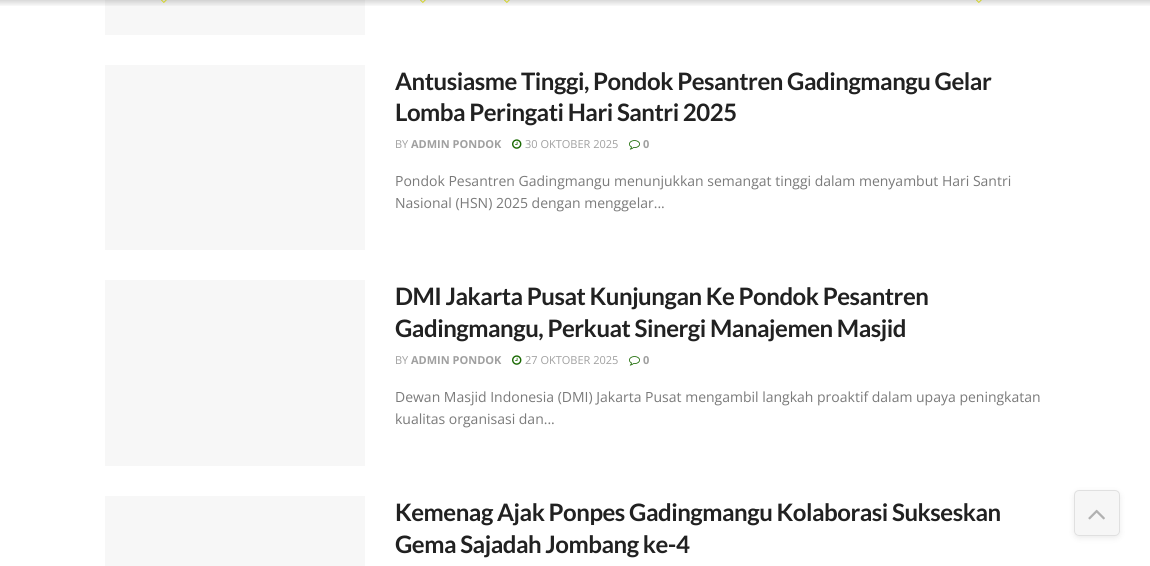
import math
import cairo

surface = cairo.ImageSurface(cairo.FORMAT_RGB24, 1150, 566)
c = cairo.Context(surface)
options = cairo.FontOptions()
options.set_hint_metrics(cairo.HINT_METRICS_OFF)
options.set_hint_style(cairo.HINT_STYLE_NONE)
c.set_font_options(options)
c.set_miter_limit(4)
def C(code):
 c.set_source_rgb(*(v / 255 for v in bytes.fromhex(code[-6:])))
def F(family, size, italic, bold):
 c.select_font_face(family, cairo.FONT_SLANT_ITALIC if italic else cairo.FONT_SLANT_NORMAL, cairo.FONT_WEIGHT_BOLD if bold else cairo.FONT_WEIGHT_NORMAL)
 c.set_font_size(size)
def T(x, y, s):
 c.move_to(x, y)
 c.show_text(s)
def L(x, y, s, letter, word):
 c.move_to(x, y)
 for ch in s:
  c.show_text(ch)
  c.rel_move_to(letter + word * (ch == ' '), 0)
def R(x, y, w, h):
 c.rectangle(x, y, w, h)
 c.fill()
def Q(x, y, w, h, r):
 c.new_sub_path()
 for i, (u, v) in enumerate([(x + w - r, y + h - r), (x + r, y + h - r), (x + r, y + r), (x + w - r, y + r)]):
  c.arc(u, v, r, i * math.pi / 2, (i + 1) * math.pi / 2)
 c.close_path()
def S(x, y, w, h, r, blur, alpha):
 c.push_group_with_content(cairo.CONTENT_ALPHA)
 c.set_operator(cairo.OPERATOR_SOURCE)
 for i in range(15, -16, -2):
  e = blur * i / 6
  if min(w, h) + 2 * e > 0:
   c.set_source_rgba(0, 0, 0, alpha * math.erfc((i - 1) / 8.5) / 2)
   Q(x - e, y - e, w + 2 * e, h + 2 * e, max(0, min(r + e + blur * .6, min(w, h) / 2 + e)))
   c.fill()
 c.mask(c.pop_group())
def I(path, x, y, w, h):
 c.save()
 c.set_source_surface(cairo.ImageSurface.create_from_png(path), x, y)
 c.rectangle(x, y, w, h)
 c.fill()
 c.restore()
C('ffffff')
c.paint()
C('f7f7f7')
R(105,0,260,35)
I('1.png',161,0,6,3)
I('2.png',420,0,6,3)
I('2.png',504,0,6,3)
I('2.png',976,0,6,3)
gradient = cairo.LinearGradient(575,0,575,7)
gradient.add_color_stop_rgba(0,0,0,0,.15)
gradient.add_color_stop_rgba(1,0,0,0,0)
c.set_source(gradient)
R(0,0,1150,6)
C('f7f7f7')
R(105,65,260,185)
F('Lato',24,0,1)
C('212121')
L(395,90,'Antusiasme Tinggi, Pondok Pesantren Gadingmangu Gelar',-.48,0)
L(395,121,'Lomba Peringati Hari Santri 2025',-.48,0)
F('Open Sans',11,0,0)
C('a0a0a0')
T(395,148,'BY')
F('Open Sans',11,0,1)
T(411,148,'ADMIN PONDOK')
I('3.png',512,139,10,10)
F('Open Sans',11,0,0)
T(525,148,'30 OKTOBER 2025')
I('4.png',629,140,11,10)
F('Open Sans',11,0,1)
T(643,148,'0')
F('Open Sans',14,0,0)
C('7a7a7a')
T(395,186,'Pondok Pesantren Gadingmangu menunjukkan semangat tinggi dalam menyambut Hari Santri')
T(395,208,'Nasional (HSN) 2025 dengan menggelar...')
C('f7f7f7')
R(105,280,260,186)
F('Lato',24,0,1)
C('212121')
L(395,305,'DMI Jakarta Pusat Kunjungan Ke Pondok Pesantren',-.48,0)
L(395,337,'Gadingmangu, Perkuat Sinergi Manajemen Masjid',-.48,0)
F('Open Sans',11,0,0)
C('a0a0a0')
T(395,364,'BY')
F('Open Sans',11,0,1)
T(411,364,'ADMIN PONDOK')
I('3.png',512,355,10,10)
F('Open Sans',11,0,0)
T(525,364,'27 OKTOBER 2025')
I('4.png',629,356,11,10)
F('Open Sans',11,0,1)
T(643,364,'0')
F('Open Sans',14,0,0)
C('7a7a7a')
T(395,402,'Dewan Masjid Indonesia (DMI) Jakarta Pusat mengambil langkah proaktif dalam upaya peningkatan')
T(395,424,'kualitas organisasi dan...')
C('f7f7f7')
R(105,496,260,70)
F('Lato',24,0,1)
C('212121')
L(395,521,'Kemenag Ajak Ponpes Gadingmangu Kolaborasi Sukseskan',-.48,0)
L(395,553,'Gema Sajadah Jombang ke-4',-.48,0)
c.save()
c.set_fill_rule(cairo.FILL_RULE_EVEN_ODD)
c.new_path()
c.move_to(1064,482)
c.line_to(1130,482)
c.line_to(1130,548)
c.line_to(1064,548)
c.close_path()
c.move_to(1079,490)
c.line_to(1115,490)
c.curve_to(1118,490,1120,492,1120,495)
c.line_to(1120,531)
c.curve_to(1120,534,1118,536,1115,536)
c.line_to(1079,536)
c.curve_to(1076,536,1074,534,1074,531)
c.line_to(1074,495)
c.curve_to(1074,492,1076,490,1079,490)
c.close_path()
c.clip()
C('333333')
S(1074,492,46,46,5,3,.1)
c.restore()
c.set_source_rgba(0.765,0.765,0.765,0.15)
Q(1074,490,46,46,5)
c.fill()
Q(1074.5,490.5,45,45,4.5)
c.set_source_rgba(0.2,0.2,0.2,0.11)
c.set_line_width(1)
c.stroke()
I('5.png',1088,509,17,11)
surface.write_to_png('o.png')
